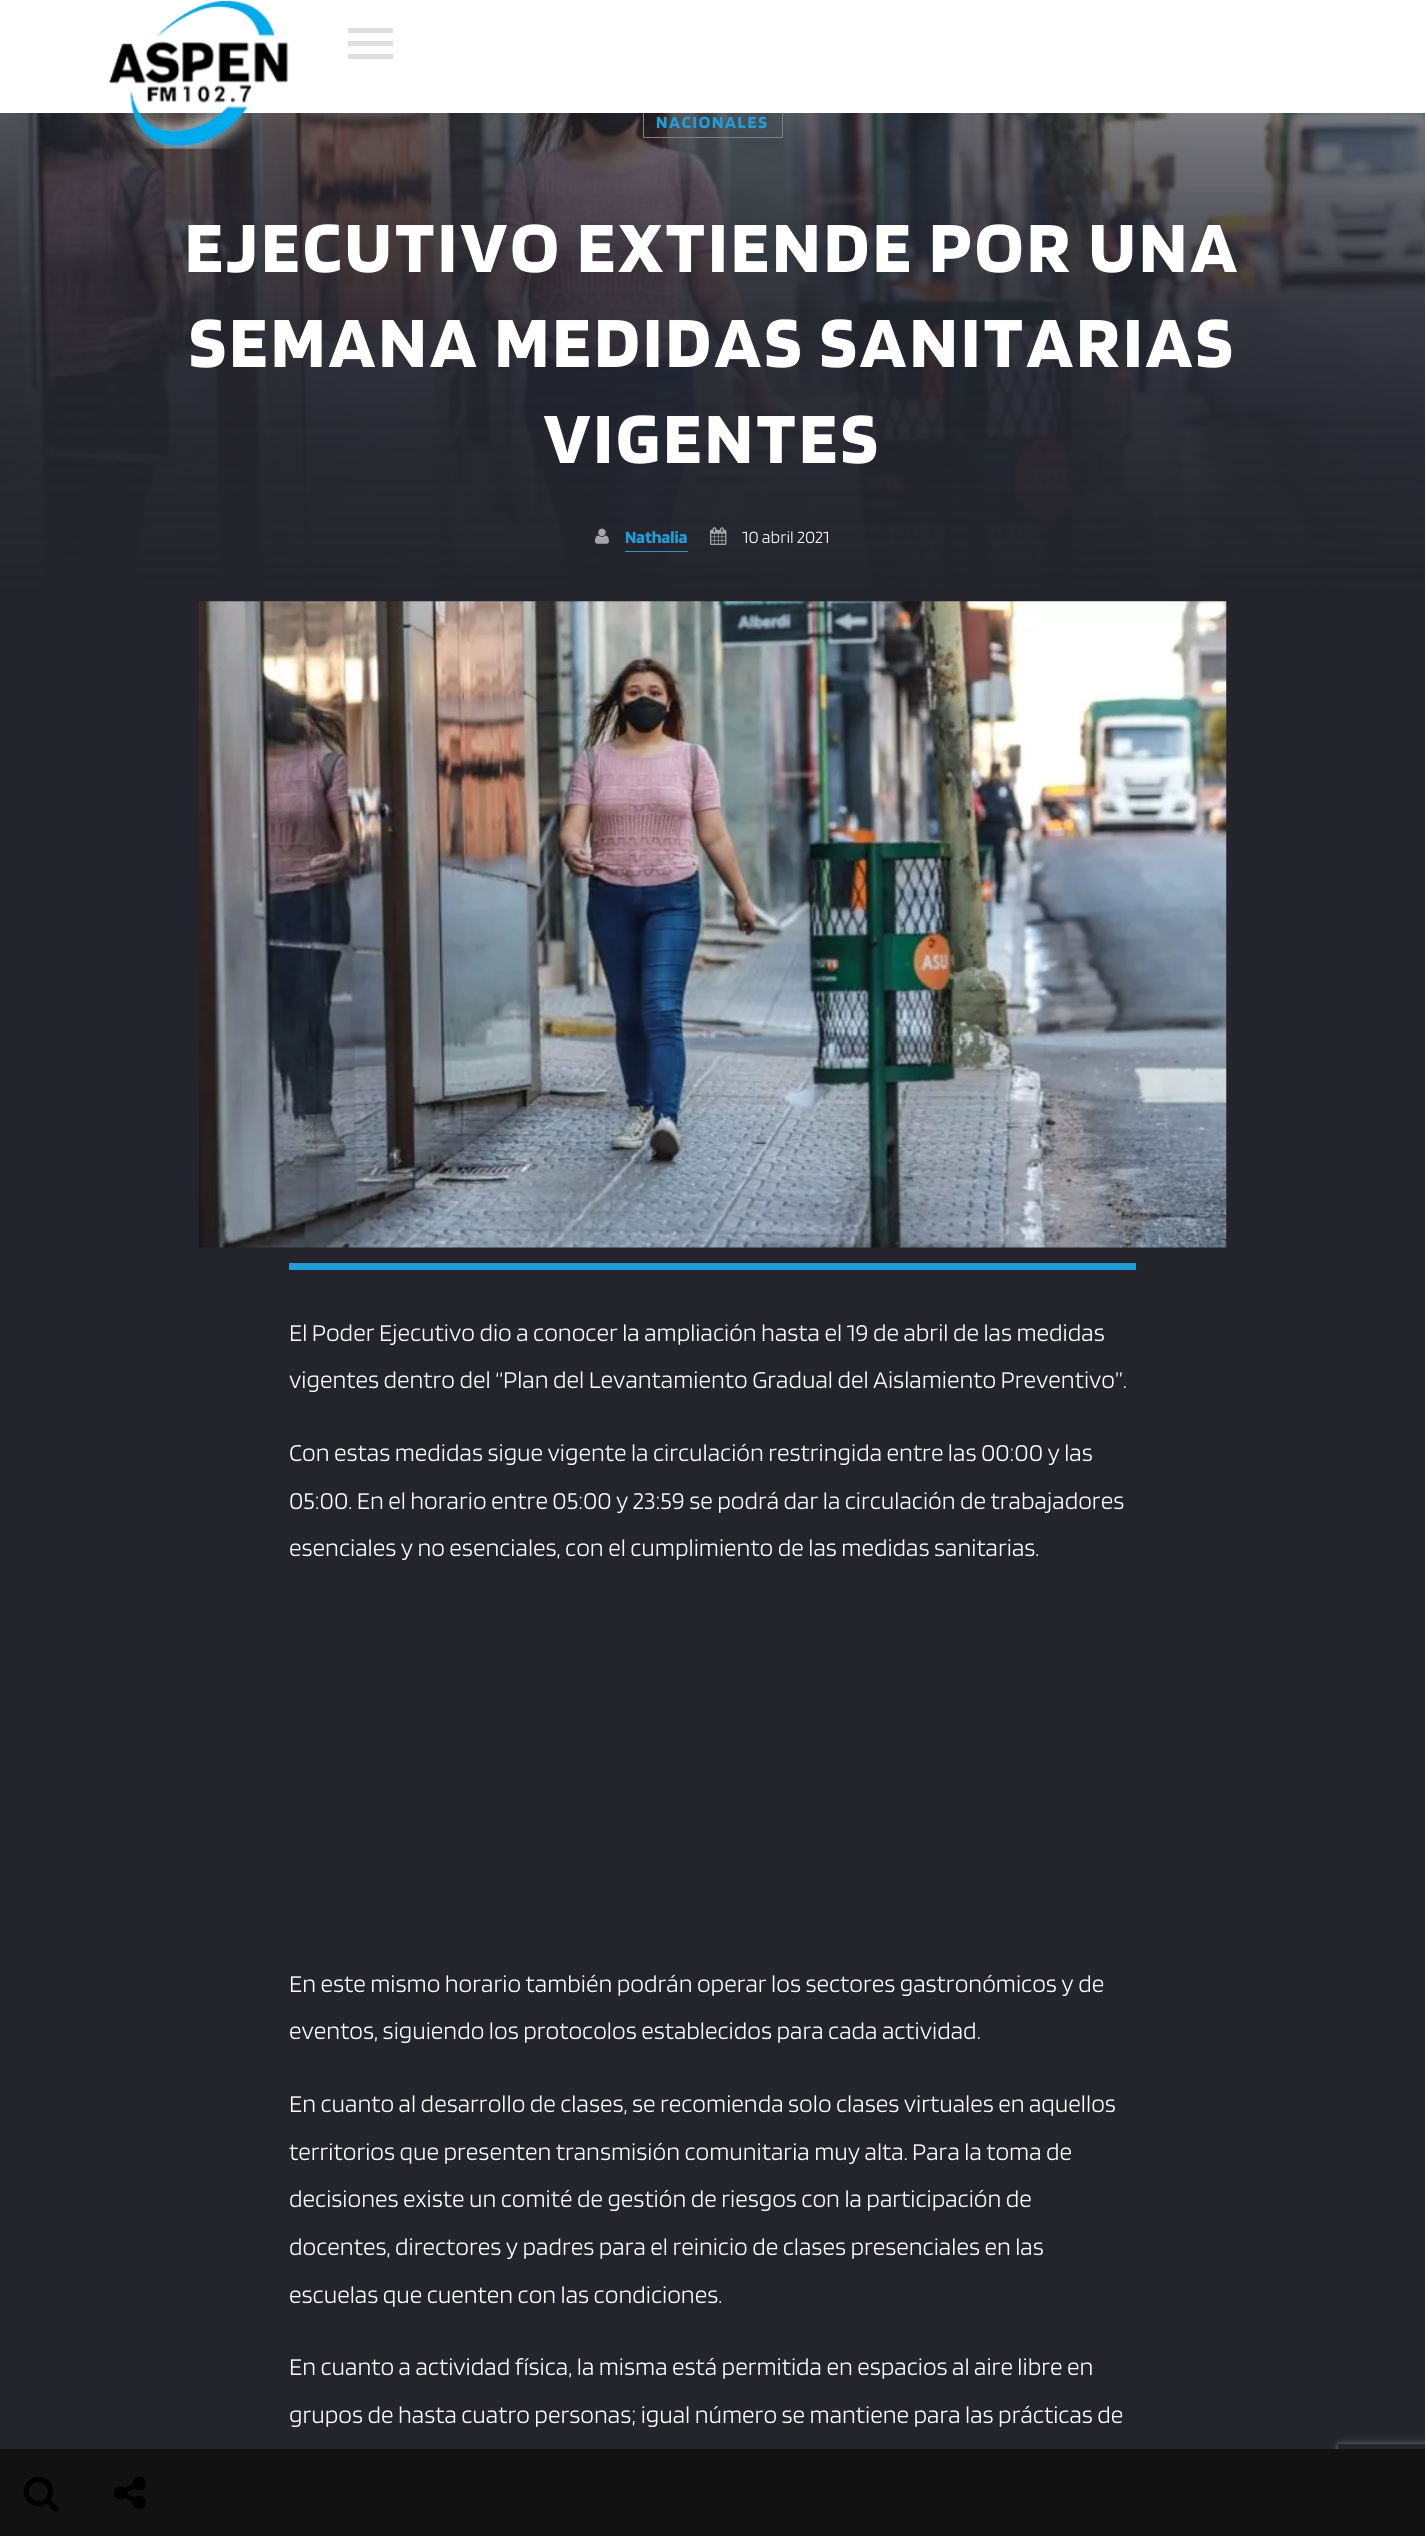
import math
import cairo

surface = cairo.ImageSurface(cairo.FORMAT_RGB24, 1425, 2536)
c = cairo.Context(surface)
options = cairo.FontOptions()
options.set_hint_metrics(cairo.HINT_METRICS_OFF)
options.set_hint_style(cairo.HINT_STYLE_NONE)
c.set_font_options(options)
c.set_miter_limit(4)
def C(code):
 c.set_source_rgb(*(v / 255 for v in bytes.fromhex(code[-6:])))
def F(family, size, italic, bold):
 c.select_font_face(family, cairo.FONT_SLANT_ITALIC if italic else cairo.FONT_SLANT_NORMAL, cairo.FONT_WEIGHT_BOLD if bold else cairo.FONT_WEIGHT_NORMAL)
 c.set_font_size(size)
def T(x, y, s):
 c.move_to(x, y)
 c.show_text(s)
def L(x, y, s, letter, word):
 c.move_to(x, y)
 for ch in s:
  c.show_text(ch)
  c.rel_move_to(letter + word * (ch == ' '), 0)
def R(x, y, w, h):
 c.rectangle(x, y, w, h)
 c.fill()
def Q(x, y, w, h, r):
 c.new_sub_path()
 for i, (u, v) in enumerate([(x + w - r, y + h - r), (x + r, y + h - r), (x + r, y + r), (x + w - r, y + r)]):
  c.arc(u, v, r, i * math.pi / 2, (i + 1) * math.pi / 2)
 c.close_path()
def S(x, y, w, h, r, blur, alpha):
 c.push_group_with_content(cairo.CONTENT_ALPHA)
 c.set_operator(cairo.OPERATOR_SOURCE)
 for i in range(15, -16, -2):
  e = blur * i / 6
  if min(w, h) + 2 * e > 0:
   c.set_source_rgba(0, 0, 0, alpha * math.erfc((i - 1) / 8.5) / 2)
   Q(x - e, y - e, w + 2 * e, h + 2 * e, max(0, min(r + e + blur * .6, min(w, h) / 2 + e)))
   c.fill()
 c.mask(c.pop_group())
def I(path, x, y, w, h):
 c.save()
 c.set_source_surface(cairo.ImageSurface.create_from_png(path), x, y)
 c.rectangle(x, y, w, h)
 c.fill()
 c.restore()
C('24242d')
c.paint()
I('4.png',0,113,1425,487)
gradient = cairo.LinearGradient(713,-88,713,883)
gradient.add_color_stop_rgba(0,0.141,0.141,0.176,0)
gradient.add_color_stop_rgba(1,0.141,0.141,0.176,.6)
c.set_source(gradient)
R(0,113,1425,487)
gradient = cairo.LinearGradient(713,-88,713,913)
gradient.add_color_stop_rgba(0,0.141,0.141,0.176,0)
gradient.add_color_stop_rgba(1,0.141,0.141,0.176,1)
c.set_source(gradient)
R(0,113,1425,487)
gradient = cairo.LinearGradient(712,91,713,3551)
gradient.add_color_stop_rgba(0,0.141,0.141,0.176,0)
gradient.add_color_stop_rgba(1,0.141,0.141,0.176,1)
c.set_source(gradient)
R(110,193,1315,407)
gradient = cairo.LinearGradient(713,91,713,603)
gradient.add_color_stop_rgba(0,0.141,0.141,0.176,0)
gradient.add_color_stop_rgba(1,0.141,0.141,0.176,1)
c.set_source(gradient)
R(0,113,1425,487)
c.rectangle(643.5,104.5,139,33)
C('808080')
c.set_line_width(1)
c.stroke()
C('ffffff')
R(0,0,1425,113)
I('1.png',108,0,181,149)
C('dedede')
c.new_path()
c.move_to(348,59)
c.line_to(393,59)
c.line_to(393,54)
c.line_to(348,54)
c.close_path()
c.move_to(348,46)
c.line_to(393,46)
c.line_to(393,41)
c.line_to(348,41)
c.close_path()
c.move_to(348,28)
c.line_to(348,33)
c.line_to(393,33)
c.line_to(393,28)
c.close_path()
c.fill()
c.save()
c.set_fill_rule(cairo.FILL_RULE_EVEN_ODD)
c.new_path()
c.move_to(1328,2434)
c.line_to(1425,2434)
c.line_to(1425,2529)
c.line_to(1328,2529)
c.close_path()
c.move_to(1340.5,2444)
c.line_to(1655.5,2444)
c.curve_to(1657,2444,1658,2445,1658,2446.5)
c.line_to(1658,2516.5)
c.curve_to(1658,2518,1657,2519,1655.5,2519)
c.line_to(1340.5,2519)
c.curve_to(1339,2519,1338,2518,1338,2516.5)
c.line_to(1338,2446.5)
c.curve_to(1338,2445,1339,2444,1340.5,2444)
c.close_path()
c.clip()
C('808080')
S(1338,2444,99,75,2.5,3,1)
c.restore()
C('121212')
R(0,2449,1425,87)
I('2.png',23,2477,36,35)
I('3.png',114,2477,32,32)
F('Blinker',17.75,0,1)
C('229cd5')
L(656,128,'NACIONALES',1.75,0)
F('Blinker',74.9,0,1)
C('ffffff')
L(185,272,'EJECUTIVO EXTIENDE POR UNA',3.75,0)
L(189,367,'SEMANA MEDIDAS SANITARIAS',3.75,0)
L(544,463,'VIGENTES',3.75,0)
I('5.png',595,528,14,16)
F('Blinker',17.75,0,1)
C('229cd5')
T(625,543,'Nathalia')
R(625,551,63,1)
I('6.png',710,527,17,18)
F('Blinker ExtraLight',17.75,0,0)
C('ffffff')
T(742,543,'10 abril 2021')
I('7.png',198,601,1029,647)
C('229cd5')
R(289,1263,847,7)
F('Blinker ExtraLight',25,0,0)
C('ffffff')
T(289,1341,'El Poder Ejecutivo dio a conocer la ampliación hasta el 19 de abril de las medidas')
T(289,1388,'vigentes dentro del “Plan del Levantamiento Gradual del Aislamiento Preventivo”.')
T(289,1461,'Con estas medidas sigue vigente la circulación restringida entre las 00:00 y las')
T(289,1509,'05:00. En el horario entre 05:00 y 23:59 se podrá dar la circulación de trabajadores')
T(289,1556,'esenciales y no esenciales, con el cumplimiento de las medidas sanitarias.')
T(289,1992,'En este mismo horario también podrán operar los sectores gastronómicos y de')
T(289,2039,'eventos, siguiendo los protocolos establecidos para cada actividad.')
T(289,2112,'En cuanto al desarrollo de clases, se recomienda solo clases virtuales en aquellos')
T(289,2160,'territorios que presenten transmisión comunitaria muy alta. Para la toma de')
T(289,2207,'decisiones existe un comité de gestión de riesgos con la participación de')
T(289,2255,'docentes, directores y padres para el reinicio de clases presenciales en las')
T(289,2303,'escuelas que cuenten con las condiciones.')
T(289,2375,'En cuanto a actividad física, la misma está permitida en espacios al aire libre en')
T(289,2423,'grupos de hasta cuatro personas; igual número se mantiene para las prácticas de')
surface.write_to_png('o.png')
